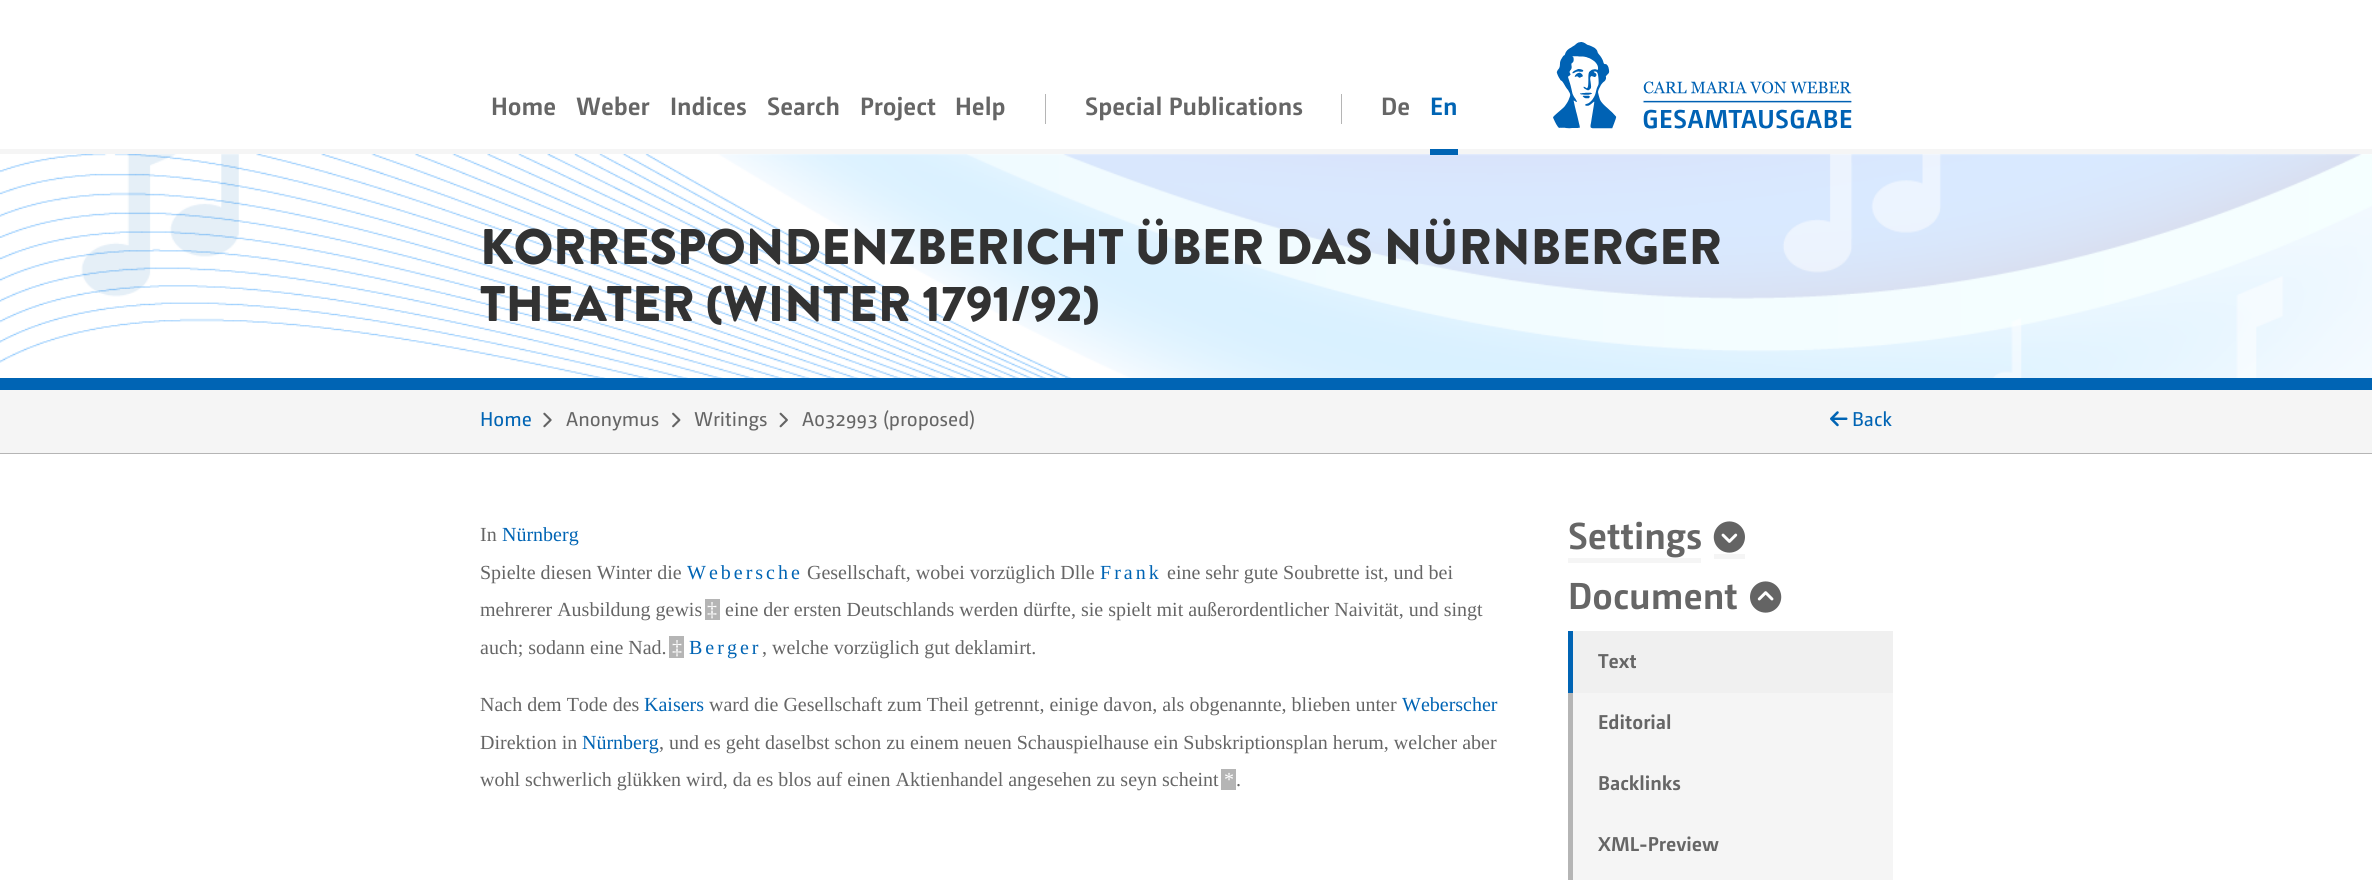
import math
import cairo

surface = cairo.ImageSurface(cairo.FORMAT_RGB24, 2372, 880)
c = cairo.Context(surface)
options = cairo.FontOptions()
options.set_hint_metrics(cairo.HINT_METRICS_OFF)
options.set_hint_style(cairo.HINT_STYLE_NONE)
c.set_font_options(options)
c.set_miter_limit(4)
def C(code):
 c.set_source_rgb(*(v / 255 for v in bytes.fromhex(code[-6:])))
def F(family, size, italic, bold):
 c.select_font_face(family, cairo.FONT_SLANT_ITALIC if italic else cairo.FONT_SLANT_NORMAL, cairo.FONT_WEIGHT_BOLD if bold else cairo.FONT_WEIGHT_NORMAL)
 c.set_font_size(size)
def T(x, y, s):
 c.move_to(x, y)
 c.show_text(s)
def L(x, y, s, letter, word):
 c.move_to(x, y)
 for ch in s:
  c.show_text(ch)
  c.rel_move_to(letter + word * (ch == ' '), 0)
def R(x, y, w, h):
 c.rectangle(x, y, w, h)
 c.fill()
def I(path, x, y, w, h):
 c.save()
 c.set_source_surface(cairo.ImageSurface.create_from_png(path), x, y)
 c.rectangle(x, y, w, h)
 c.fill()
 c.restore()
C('ffffff')
c.paint()
F('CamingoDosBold',25,0,1)
C('666666')
T(491,115,'Home')
T(576,115,'Weber')
T(670,115,'Indices')
T(767,115,'Search')
T(860,115,'Project')
T(955,115,'Help')
C('b5b5b5')
R(1045,94,1,30)
C('666666')
T(1085,115,'Special Publications')
C('b5b5b5')
R(1341,94,1,30)
C('666666')
T(1381,115,'De')
C('0064b4')
T(1430,115,'En')
C('f5f5f5')
R(0,149,2372,5)
I('2.png',0,154,2372,224)
C('0064b4')
R(1430,149,28,6)
I('1.png',1553,42,299,87)
R(0,378,2372,12)
F('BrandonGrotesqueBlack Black',50,0,0)
C('323232')
T(480,264,'KORRESPONDENZBERICHT ÜBER DAS NÜRNBERGER')
T(480,321,'THEATER (WINTER 1791/92)')
C('f5f5f5')
R(0,390,2372,63)
C('b5b5b5')
R(0,453,2372,1)
F('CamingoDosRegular',20,0,0)
C('0064b4')
T(480,426,'Home')
I('3.png',543,412,9,16)
C('666666')
T(566,426,'Anonymus')
I('4.png',672,412,9,16)
T(694,426,'Writings')
I('5.png',779,412,9,16)
T(802,426,'A032993 (proposed)')
I('6.png',1830,411,18,16)
C('0064b4')
T(1852,426,'Back')
F('Liberation Serif',20,0,0)
C('666666')
T(480,541,'In')
C('0064b4')
T(502,541,'Nürnberg')
C('666666')
T(480,579,'Spielte diesen Winter die')
C('0064b4')
L(687,579,'Webersche',3,0)
C('666666')
T(807,579,'Gesellschaft, wobei vorzüglich Dlle')
C('0064b4')
L(1100,579,'Frank',3,0)
C('666666')
T(1167,579,'eine sehr gute Soubrette ist, und bei')
T(480,616,'mehrerer Ausbildung gewis')
C('b5b5b5')
R(705,599,15,21)
C('ffffff')
T(707,616,'‡')
C('666666')
T(725,616,'eine der ersten Deutschlands werden dürfte, sie spielt mit außerordentlicher Naivität, und singt')
T(480,654,'auch; sodann eine Nad.')
C('b5b5b5')
R(669,636,15,22)
C('ffffff')
T(672,654,'‡')
C('0064b4')
L(689,654,'Berger',3,0)
C('666666')
T(762,654,', welche vorzüglich gut deklamirt.')
T(480,711,'Nach dem Tode des')
C('0064b4')
T(644,711,'Kaisers')
C('666666')
T(709,711,'ward die Gesellschaft zum Theil getrennt, einige davon, als obgenannte, blieben unter')
C('0064b4')
T(1402,711,'Weberscher')
C('666666')
T(480,749,'Direktion in')
C('0064b4')
T(582,749,'Nürnberg')
C('666666')
T(659,749,', und es geht daselbst schon zu einem neuen Schauspielhause ein Subskriptionsplan herum, welcher aber')
T(480,786,'wohl schwerlich glükken wird, da es blos auf einen Aktienhandel angesehen zu seyn scheint')
C('b5b5b5')
R(1221,769,15,21)
C('ffffff')
T(1224,786,'*')
C('666666')
T(1236,786,'.')
F('CamingoDosBold',37.5,0,1)
T(1568,549,'Settings')
C('f5f5f5')
R(1568,558,133,5)
R(1714,554,31,5)
I('7.png',1713,521,32,32)
C('666666')
T(1568,609,'Document')
I('8.png',1750,581,32,32)
C('f0f0f0')
R(1573,631,320,62)
C('0064b4')
R(1568,631,5,63)
F('CamingoDosBold',20,0,1)
C('666666')
T(1598,668,'Text')
C('f5f5f5')
R(1573,693,320,183)
C('b5b5b5')
R(1568,693,5,185)
C('666666')
T(1598,729,'Editorial')
T(1598,790,'Backlinks')
T(1598,851,'XML-Preview')
C('f5f5f5')
R(1568,876,325,4)
C('b5b5b5')
R(1568,876,5,4)
surface.write_to_png('o.png')
